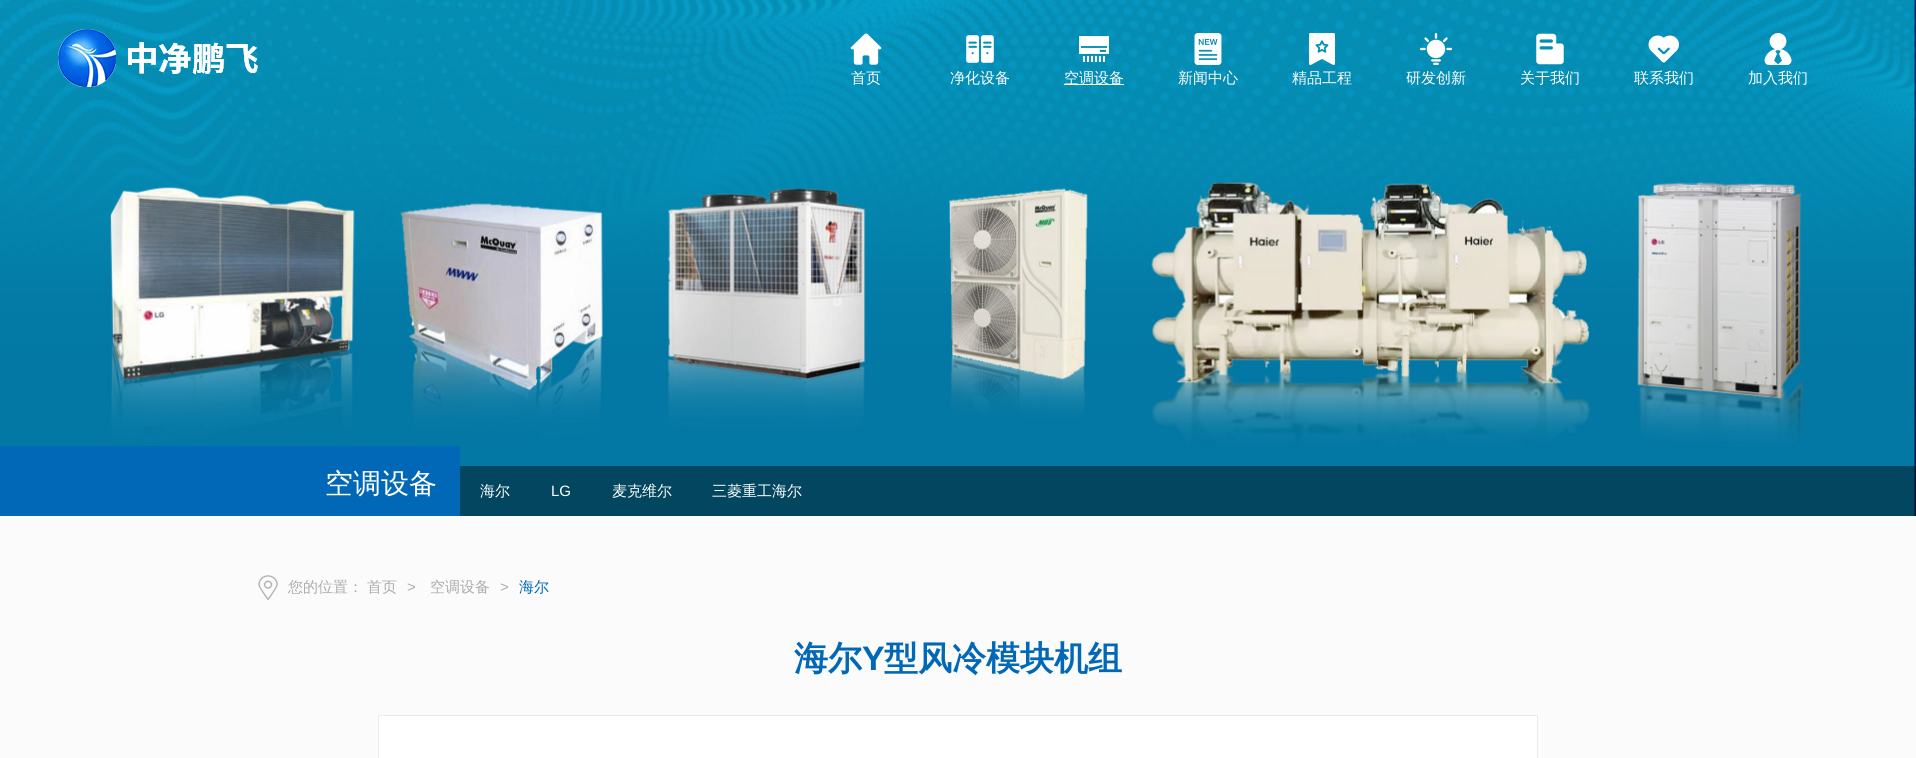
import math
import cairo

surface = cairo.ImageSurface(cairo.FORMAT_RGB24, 1916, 758)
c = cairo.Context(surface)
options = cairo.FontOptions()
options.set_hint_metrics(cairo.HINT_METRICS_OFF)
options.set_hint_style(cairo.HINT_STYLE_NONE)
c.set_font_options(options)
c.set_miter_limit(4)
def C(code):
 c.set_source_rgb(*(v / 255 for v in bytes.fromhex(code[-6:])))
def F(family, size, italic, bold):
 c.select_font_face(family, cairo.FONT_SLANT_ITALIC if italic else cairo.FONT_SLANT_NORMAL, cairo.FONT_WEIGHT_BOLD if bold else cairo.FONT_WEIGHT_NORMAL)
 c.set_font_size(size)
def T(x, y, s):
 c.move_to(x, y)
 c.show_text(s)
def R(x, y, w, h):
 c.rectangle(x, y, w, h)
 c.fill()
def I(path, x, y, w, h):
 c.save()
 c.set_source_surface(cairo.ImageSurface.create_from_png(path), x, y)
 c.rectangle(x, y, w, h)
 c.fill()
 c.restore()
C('fbfbfb')
c.paint()
I('1.png',0,0,1916,516)
I('2.png',58,29,200,58)
I('3.png',850,33,32,32)
F('WenQuanYi Zen Hei Medium',15,0,0)
C('ffffff')
T(851,83,'首页')
I('4.png',966,35,28,28)
T(950,83,'净化设备')
I('5.png',1079,36,30,26)
R(1064,84,60,1)
T(1064,83,'空调设备')
I('6.png',1194,33,28,32)
T(1178,83,'新闻中心')
I('7.png',1309,33,26,32)
T(1292,83,'精品工程')
I('8.png',1420,33,32,32)
T(1406,83,'研发创新')
I('9.png',1536,33,28,32)
T(1520,83,'关于我们')
I('10.png',1648,35,31,28)
T(1634,83,'联系我们')
I('11.png',1764,33,28,32)
T(1748,83,'加入我们')
C('0068b7')
R(0,446,460,70)
F('WenQuanYi Zen Hei Medium',28,0,0)
C('ffffff')
T(325,493,'空调设备')
c.set_source_rgba(0,0,0,0.42)
R(460,466,1456,50)
F('WenQuanYi Zen Hei Medium',15,0,0)
C('ffffff')
T(480,496,'海尔')
F('Liberation Sans',15,0,0)
T(551,496,'LG')
F('WenQuanYi Zen Hei Medium',15,0,0)
T(612,496,'麦克维尔')
T(712,496,'三菱重工海尔')
I('12.png',258,575,20,25)
C('acacac')
T(288,592,'您的位置：')
T(367,592,'首页')
F('Liberation Sans',15,0,0)
T(407,592,'>')
F('WenQuanYi Zen Hei Medium',15,0,0)
T(430,592,'空调设备')
F('Liberation Sans',15,0,0)
T(500,592,'>')
F('WenQuanYi Zen Hei Medium',15,0,0)
C('0068b7')
T(519,592,'海尔')
F('WenQuanYi Zen Hei',34,0,1)
T(794,670,'海尔')
F('Liberation Sans',34,0,1)
T(862,670,'Y')
F('WenQuanYi Zen Hei',34,0,1)
T(884,670,'型风冷模块机组')
C('ffffff')
c.rectangle(378.5,715.5,1159,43)
c.fill_preserve()
C('ebebeb')
c.set_line_width(1)
c.stroke()
surface.write_to_png('o.png')
